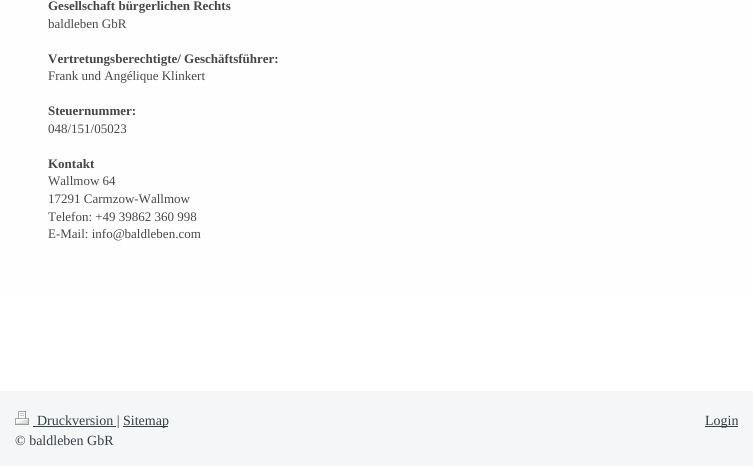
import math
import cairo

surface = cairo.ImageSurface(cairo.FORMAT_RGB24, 753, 466)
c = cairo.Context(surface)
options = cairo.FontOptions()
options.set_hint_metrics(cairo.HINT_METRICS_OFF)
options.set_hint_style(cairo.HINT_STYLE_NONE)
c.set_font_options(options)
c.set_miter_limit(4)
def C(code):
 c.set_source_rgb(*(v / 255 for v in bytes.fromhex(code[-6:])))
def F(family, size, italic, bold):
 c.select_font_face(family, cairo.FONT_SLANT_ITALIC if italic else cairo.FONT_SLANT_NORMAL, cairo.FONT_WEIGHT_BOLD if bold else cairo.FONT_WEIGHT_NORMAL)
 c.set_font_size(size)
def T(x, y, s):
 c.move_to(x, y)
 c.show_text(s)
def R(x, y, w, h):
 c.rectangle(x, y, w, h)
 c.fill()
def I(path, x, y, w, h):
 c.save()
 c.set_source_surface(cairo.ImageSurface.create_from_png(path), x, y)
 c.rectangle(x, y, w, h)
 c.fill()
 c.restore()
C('f5f6f8')
c.paint()
C('fefefe')
R(0,0,753,295)
F('Liberation Serif',13,0,1)
C('474747')
T(48,10,'Gesellschaft bürgerlichen Rechts')
F('Liberation Serif',13,0,0)
T(48,28,'baldleben GbR')
F('Liberation Serif',13,0,1)
T(48,63,'Vertretungsberechtigte/ Geschäftsführer:')
F('Liberation Serif',13,0,0)
T(48,80,'Frank und Angélique Klinkert')
F('Liberation Serif',13,0,1)
T(48,115,'Steuernummer:')
F('Liberation Serif',13,0,0)
T(48,133,'048/151/05023')
F('Liberation Serif',13,0,1)
T(48,168,'Kontakt')
F('Liberation Serif',13,0,0)
T(48,185,'Wallmow 64')
T(48,203,'17291 Carmzow-Wallmow')
T(48,221,'Telefon: +49 39862 360 998')
T(48,238,'E-Mail: info@baldleben.com')
C('ffffff')
R(0,295,753,96)
I('1.png',15,411,14,14)
C('383d46')
R(33,426,83,1)
F('Liberation Serif',14,0,0)
T(37,425,'Druckversion |')
R(123,426,45,1)
T(123,425,'Sitemap')
T(15,445,'© baldleben GbR')
R(705,426,33,1)
T(705,425,'Login')
surface.write_to_png('o.png')
